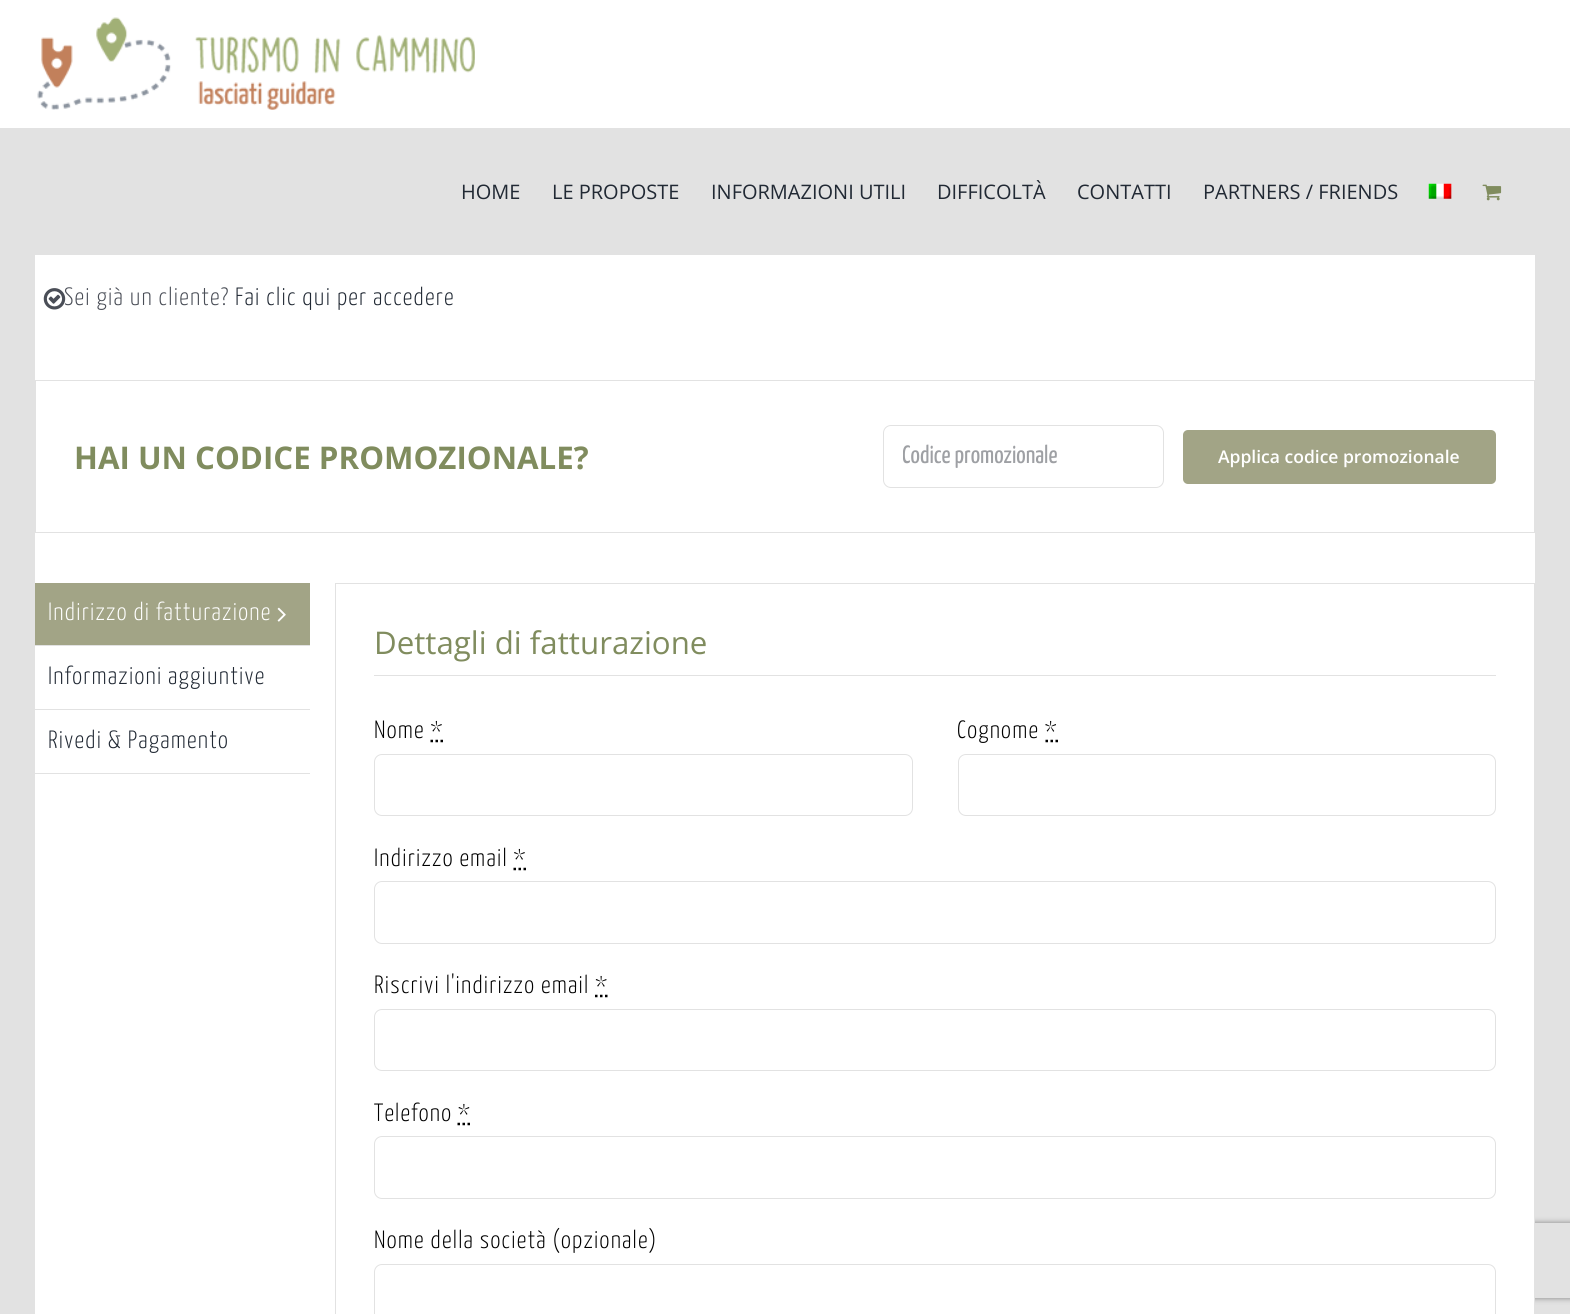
import math
import cairo

surface = cairo.ImageSurface(cairo.FORMAT_RGB24, 1570, 1314)
c = cairo.Context(surface)
options = cairo.FontOptions()
options.set_hint_metrics(cairo.HINT_METRICS_OFF)
options.set_hint_style(cairo.HINT_STYLE_NONE)
c.set_font_options(options)
c.set_miter_limit(4)
def C(code):
 c.set_source_rgb(*(v / 255 for v in bytes.fromhex(code[-6:])))
def F(family, size, italic, bold):
 c.select_font_face(family, cairo.FONT_SLANT_ITALIC if italic else cairo.FONT_SLANT_NORMAL, cairo.FONT_WEIGHT_BOLD if bold else cairo.FONT_WEIGHT_NORMAL)
 c.set_font_size(size)
def T(x, y, s):
 c.move_to(x, y)
 c.show_text(s)
def L(x, y, s, letter, word):
 c.move_to(x, y)
 for ch in s:
  c.show_text(ch)
  c.rel_move_to(letter + word * (ch == ' '), 0)
def R(x, y, w, h):
 c.rectangle(x, y, w, h)
 c.fill()
def Q(x, y, w, h, r):
 c.new_sub_path()
 for i, (u, v) in enumerate([(x + w - r, y + h - r), (x + r, y + h - r), (x + r, y + r), (x + w - r, y + r)]):
  c.arc(u, v, r, i * math.pi / 2, (i + 1) * math.pi / 2)
 c.close_path()
def S(x, y, w, h, r, blur, alpha):
 c.push_group_with_content(cairo.CONTENT_ALPHA)
 c.set_operator(cairo.OPERATOR_SOURCE)
 for i in range(15, -16, -2):
  e = blur * i / 6
  if min(w, h) + 2 * e > 0:
   c.set_source_rgba(0, 0, 0, alpha * math.erfc((i - 1) / 8.5) / 2)
   Q(x - e, y - e, w + 2 * e, h + 2 * e, max(0, min(r + e + blur * .6, min(w, h) / 2 + e)))
   c.fill()
 c.mask(c.pop_group())
def I(path, x, y, w, h):
 c.save()
 c.set_source_surface(cairo.ImageSurface.create_from_png(path), x, y)
 c.rectangle(x, y, w, h)
 c.fill()
 c.restore()
C('e2e2e2')
c.paint()
C('ffffff')
R(0,0,1570,128)
I('1.png',37,17,438,93)
F('Open Sans',20,0,0)
C('212934')
T(461,199,'HOME')
T(552,199,'LE PROPOSTE')
T(711,199,'INFORMAZIONI UTILI')
T(937,199,'DIFFICOLTÀ')
T(1077,199,'CONTATTI')
T(1203,199,'PARTNERS / FRIENDS')
I('2.png',1428,183,24,16)
I('3.png',1482,184,20,17)
c.save()
c.set_fill_rule(cairo.FILL_RULE_EVEN_ODD)
c.new_path()
c.move_to(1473,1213)
c.line_to(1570,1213)
c.line_to(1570,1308)
c.line_to(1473,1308)
c.close_path()
c.move_to(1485.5,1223)
c.line_to(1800.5,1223)
c.curve_to(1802,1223,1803,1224,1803,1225.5)
c.line_to(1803,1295.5)
c.curve_to(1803,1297,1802,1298,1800.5,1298)
c.line_to(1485.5,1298)
c.curve_to(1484,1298,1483,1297,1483,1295.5)
c.line_to(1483,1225.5)
c.curve_to(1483,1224,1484,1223,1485.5,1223)
c.close_path()
c.clip()
C('808080')
S(1483,1223,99,75,2.5,3,1)
c.restore()
C('ffffff')
R(35,255,1500,1059)
F('Yanone Kaffeesatz Light',25,0,0)
C('4a4e57')
L(64,305,'Sei già un cliente?',1.25,0)
I('4.png',43,288,23,22)
C('212934')
L(235,305,'Fai clic qui per accedere',1.25,0)
c.rectangle(35.5,380.5,1499,152)
C('e2e2e2')
c.set_line_width(1)
c.stroke()
F('Open Sans',31.25,0,1)
C('808c5e')
T(74,469,'HAI UN CODICE PROMOZIONALE?')
Q(883.5,425.5,280,62,7.5)
C('e2e2e2')
c.stroke()
c.save()
c.rectangle(903,444,241,25)
c.clip()
F('Yanone Kaffeesatz',25,0,0)
C('9ea0a4')
T(902,463,'Codice promozionale')
c.restore()
C('a2a486')
Q(1183,430,313,54,5)
c.fill()
F('Open Sans SemiBold',17.5,0,0)
C('ffffff')
T(1218,463,'Applica codice promozionale')
C('a2a486')
R(35,583,275,62)
C('e2e2e2')
R(35,645,275,1)
F('Yanone Kaffeesatz Light',25,0,0)
C('ffffff')
L(48,620,'Indirizzo di fatturazione',1.25,0)
I('5.png',277,607,9,15)
C('e2e2e2')
R(35,709,275,1)
C('212934')
L(48,684,'Informazioni aggiuntive',1.25,0)
C('e2e2e2')
R(35,773,275,1)
C('212934')
L(48,748,'Rivedi & Pagamento',1.25,0)
c.rectangle(335.5,583.5,1199,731)
C('e2e2e2')
c.stroke()
R(374,675,1122,1)
F('Open Sans',31.25,0,0)
C('808c5e')
T(374,654,'Dettagli di fatturazione')
F('Yanone Kaffeesatz Light',25,0,0)
C('000000')
L(374,738,'Nome *',1.25,0)
c.new_path()
c.move_to(430.5,741)
c.line_to(433,741)
c.move_to(435.5,741)
c.line_to(438,741)
c.move_to(440.5,741)
c.line_to(443,741)
c.set_line_width(2.5)
c.stroke()
Q(374.5,754.5,538,61,7.5)
C('e2e2e2')
c.set_line_width(1)
c.stroke()
C('000000')
L(957,738,'Cognome *',1.25,0)
c.new_path()
c.move_to(1045.5,741)
c.line_to(1048,741)
c.move_to(1050.5,741)
c.line_to(1053,741)
c.move_to(1055.5,741)
c.line_to(1058,741)
c.set_line_width(2.5)
c.stroke()
Q(958.5,754.5,537,61,7.5)
C('e2e2e2')
c.set_line_width(1)
c.stroke()
C('000000')
L(374,866,'Indirizzo email *',1.25,0)
c.new_path()
c.move_to(513.5,869)
c.line_to(516,869)
c.move_to(518.5,869)
c.line_to(521,869)
c.move_to(523.5,869)
c.line_to(526,869)
c.set_line_width(2.5)
c.stroke()
Q(374.5,881.5,1121,62,7.5)
C('e2e2e2')
c.set_line_width(1)
c.stroke()
C('000000')
L(374,993,'Riscrivi l\'indirizzo email *',1.25,0)
c.new_path()
c.move_to(595,996)
c.line_to(597.5,996)
c.move_to(600,996)
c.line_to(602.5,996)
c.move_to(605,996)
c.line_to(607.5,996)
c.set_line_width(2.5)
c.stroke()
Q(374.5,1009.5,1121,61,7.5)
C('e2e2e2')
c.set_line_width(1)
c.stroke()
C('000000')
L(374,1121,'Telefono *',1.25,0)
c.new_path()
c.move_to(457.5,1124)
c.line_to(460,1124)
c.move_to(462.5,1124)
c.line_to(465,1124)
c.move_to(467.5,1124)
c.line_to(470,1124)
c.set_line_width(2.5)
c.stroke()
Q(374.5,1136.5,1121,62,7.5)
C('e2e2e2')
c.set_line_width(1)
c.stroke()
C('000000')
L(374,1248,'Nome della società (opzionale)',1.25,0)
Q(374.5,1264.5,1121,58,7.5)
C('e2e2e2')
c.stroke()
surface.write_to_png('o.png')
